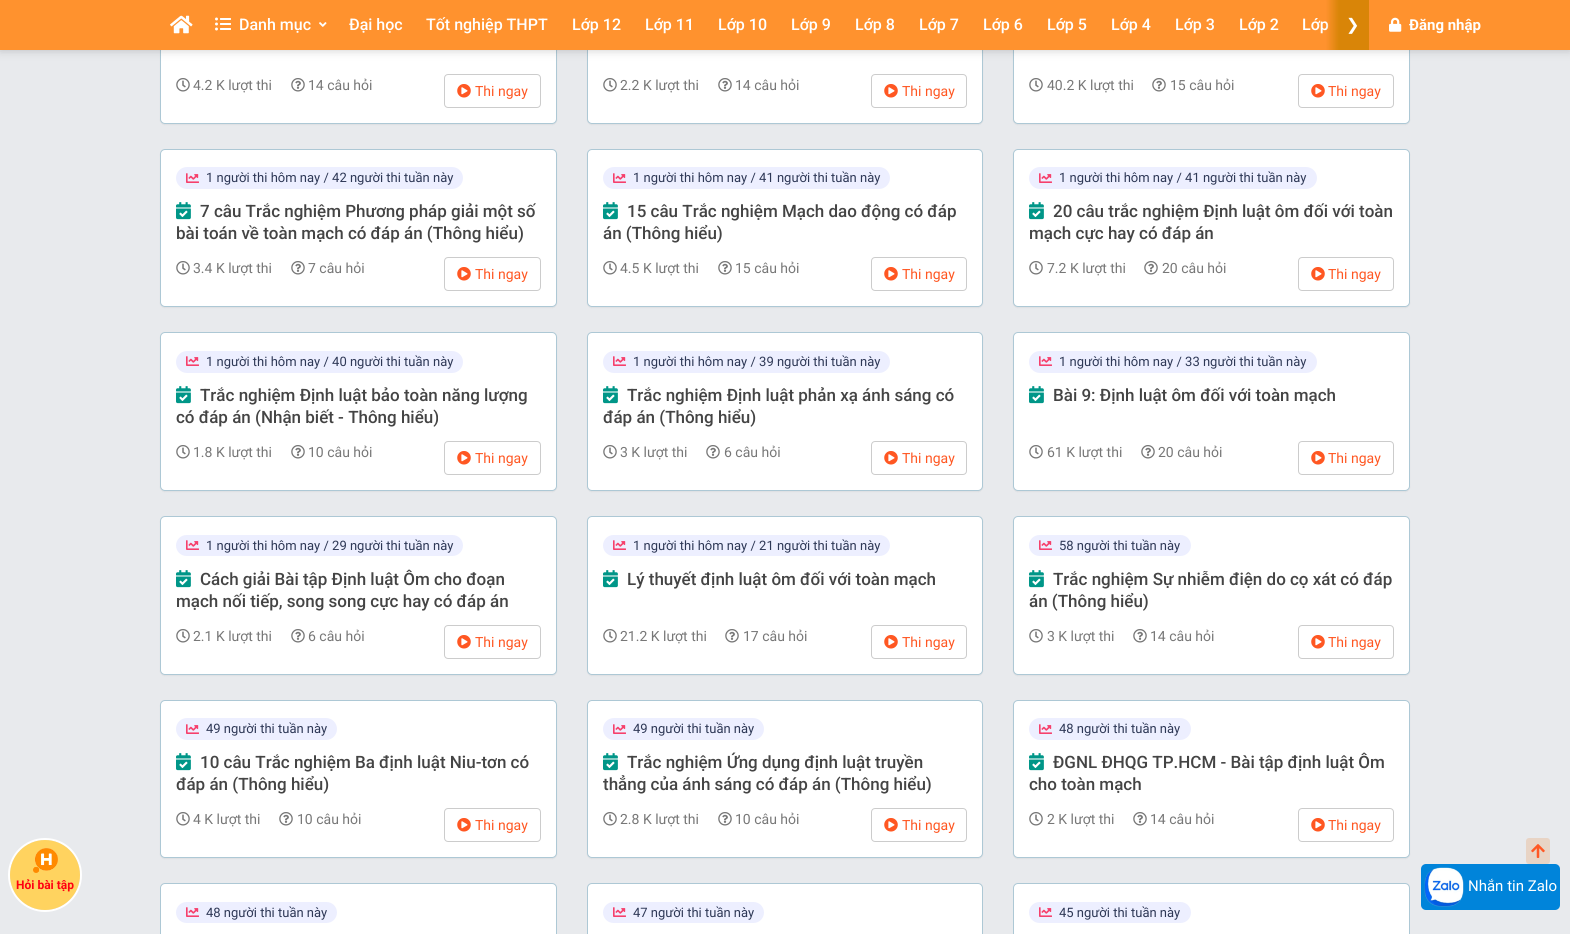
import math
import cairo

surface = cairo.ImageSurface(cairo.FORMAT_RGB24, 1570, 934)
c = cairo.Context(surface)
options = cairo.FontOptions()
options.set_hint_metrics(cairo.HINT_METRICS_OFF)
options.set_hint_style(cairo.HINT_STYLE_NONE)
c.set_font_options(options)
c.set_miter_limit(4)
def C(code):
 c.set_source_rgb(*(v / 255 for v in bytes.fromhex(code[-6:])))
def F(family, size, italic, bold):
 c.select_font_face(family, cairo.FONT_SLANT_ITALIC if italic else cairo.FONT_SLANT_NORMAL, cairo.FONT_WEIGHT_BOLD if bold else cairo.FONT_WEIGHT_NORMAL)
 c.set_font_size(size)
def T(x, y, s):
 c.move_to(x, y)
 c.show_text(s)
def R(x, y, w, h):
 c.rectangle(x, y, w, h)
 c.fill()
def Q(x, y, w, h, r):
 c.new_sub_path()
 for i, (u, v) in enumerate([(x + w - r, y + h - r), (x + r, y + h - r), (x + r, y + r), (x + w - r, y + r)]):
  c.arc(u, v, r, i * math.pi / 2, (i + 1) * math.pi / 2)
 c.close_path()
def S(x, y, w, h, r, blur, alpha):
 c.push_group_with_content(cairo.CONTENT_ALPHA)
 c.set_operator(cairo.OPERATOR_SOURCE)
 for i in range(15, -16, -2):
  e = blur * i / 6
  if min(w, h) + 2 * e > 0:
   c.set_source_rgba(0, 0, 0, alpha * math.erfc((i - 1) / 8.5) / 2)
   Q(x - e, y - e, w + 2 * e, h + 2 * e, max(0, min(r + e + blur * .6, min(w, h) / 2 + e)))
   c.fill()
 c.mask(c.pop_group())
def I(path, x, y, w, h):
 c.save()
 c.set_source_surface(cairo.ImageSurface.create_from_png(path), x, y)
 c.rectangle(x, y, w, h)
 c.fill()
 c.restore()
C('e8eaed')
c.paint()
C('000000')
S(160,-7,397,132,5,.5,.05)
C('ffffff')
Q(160.5,-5.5,396,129,4.5)
c.fill_preserve()
C('adc8d5')
c.set_line_width(1)
c.stroke()
C('000000')
S(587,-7,396,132,5,.5,.05)
C('ffffff')
Q(587.5,-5.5,395,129,4.5)
c.fill_preserve()
C('adc8d5')
c.stroke()
C('000000')
S(1013,-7,397,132,5,.5,.05)
C('ffffff')
Q(1013.5,-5.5,396,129,4.5)
c.fill_preserve()
C('adc8d5')
c.stroke()
C('000000')
S(0,0,1570,50,0,5,.2)
C('ff922e')
R(0,0,1570,50)
I('1.png',170,15,23,19)
I('2.png',215,17,16,14)
F('Roboto Medium',16,0,0)
C('ffffff')
T(239,30,'Danh mục')
I('3.png',319,22,8,5)
T(349,30,'Đại học')
T(426,30,'Tốt nghiệp THPT')
T(572,30,'Lớp 12')
T(645,30,'Lớp 11')
T(718,30,'Lớp 10')
T(791,30,'Lớp 9')
T(855,30,'Lớp 8')
T(919,30,'Lớp 7')
T(983,30,'Lớp 6')
T(1047,30,'Lớp 5')
T(1111,30,'Lớp 4')
T(1175,30,'Lớp 3')
T(1239,30,'Lớp 2')
T(1302,30,'Lớp')
gradient = cairo.LinearGradient(1369,25,1326,25)
gradient.add_color_stop_rgba(.7,0.851,0.522,0.031,1)
gradient.add_color_stop_rgba(1,0.851,0.522,0.031,0)
c.set_source(gradient)
R(1326,0,43,50)
F('DejaVu Sans',16,0,0)
C('ffffff')
T(1346,30,'❯')
I('4.png',1389,17,13,15)
F('Roboto',15,0,1)
T(1409,30,'Đăng nhập')
I('5.png',176,78,14,14)
F('Roboto',14,0,0)
C('777777')
T(193,90,'4.2 K lượt thi')
I('6.png',291,78,14,14)
T(308,90,'14 câu hỏi')
Q(444.5,74.5,96,33,3.5)
C('cccccc')
c.stroke()
I('7.png',457,84,14,14)
C('ff5722')
T(475,96,'Thi ngay')
I('5.png',603,78,14,14)
C('777777')
T(620,90,'2.2 K lượt thi')
I('6.png',718,78,14,14)
T(735,90,'14 câu hỏi')
Q(871.5,74.5,95,33,3.5)
C('cccccc')
c.stroke()
I('7.png',884,84,14,14)
C('ff5722')
T(902,96,'Thi ngay')
I('5.png',1029,78,14,14)
C('777777')
T(1047,90,'40.2 K lượt thi')
I('6.png',1152,78,14,14)
T(1170,90,'15 câu hỏi')
Q(1298.5,74.5,95,33,3.5)
C('cccccc')
c.stroke()
I('7.png',1311,84,14,14)
C('ff5722')
T(1328,96,'Thi ngay')
C('000000')
S(160,150,397,158,5,.5,.05)
C('ffffff')
Q(160.5,149.5,396,157,4.5)
c.fill_preserve()
C('adc8d5')
c.stroke()
C('edefff')
Q(176,167,287,22,11)
c.fill()
I('8.png',186,173,13,10)
F('Roboto',13,0,0)
C('2e3856')
T(206,182,'1 người thi hôm nay / 42 người thi tuần này')
I('9.png',176,202,15,18)
F('Roboto Medium',17,0,0)
C('444444')
T(200,217,'7 câu Trắc nghiệm Phương pháp giải một số')
T(176,239,'bài toán về toàn mạch có đáp án (Thông hiểu)')
I('5.png',176,261,14,14)
F('Roboto',14,0,0)
C('777777')
T(193,273,'3.4 K lượt thi')
I('6.png',291,261,14,14)
T(308,273,'7 câu hỏi')
Q(444.5,257.5,96,33,3.5)
C('cccccc')
c.stroke()
I('7.png',457,267,14,14)
C('ff5722')
T(475,279,'Thi ngay')
C('000000')
S(587,150,396,158,5,.5,.05)
C('ffffff')
Q(587.5,149.5,395,157,4.5)
c.fill_preserve()
C('adc8d5')
c.stroke()
C('edefff')
Q(603,167,287,22,11)
c.fill()
I('8.png',613,173,13,10)
F('Roboto',13,0,0)
C('2e3856')
T(633,182,'1 người thi hôm nay / 41 người thi tuần này')
I('9.png',603,202,15,18)
F('Roboto Medium',17,0,0)
C('444444')
T(627,217,'15 câu Trắc nghiệm Mạch dao động có đáp')
T(603,239,'án (Thông hiểu)')
I('5.png',603,261,14,14)
F('Roboto',14,0,0)
C('777777')
T(620,273,'4.5 K lượt thi')
I('6.png',718,261,14,14)
T(735,273,'15 câu hỏi')
Q(871.5,257.5,95,33,3.5)
C('cccccc')
c.stroke()
I('7.png',884,267,14,14)
C('ff5722')
T(902,279,'Thi ngay')
C('000000')
S(1013,150,397,158,5,.5,.05)
C('ffffff')
Q(1013.5,149.5,396,157,4.5)
c.fill_preserve()
C('adc8d5')
c.stroke()
C('edefff')
Q(1029,167,288,22,11)
c.fill()
I('8.png',1039,173,13,10)
F('Roboto',13,0,0)
C('2e3856')
T(1059,182,'1 người thi hôm nay / 41 người thi tuần này')
I('9.png',1029,202,15,18)
F('Roboto Medium',17,0,0)
C('444444')
T(1053,217,'20 câu trắc nghiệm Định luật ôm đối với toàn')
T(1029,239,'mạch cực hay có đáp án')
I('5.png',1029,261,14,14)
F('Roboto',14,0,0)
C('777777')
T(1047,273,'7.2 K lượt thi')
I('6.png',1144,261,14,14)
T(1162,273,'20 câu hỏi')
Q(1298.5,257.5,95,33,3.5)
C('cccccc')
c.stroke()
I('7.png',1311,267,14,14)
C('ff5722')
T(1328,279,'Thi ngay')
C('000000')
S(160,333,397,159,5,.5,.05)
C('ffffff')
Q(160.5,332.5,396,158,4.5)
c.fill_preserve()
C('adc8d5')
c.stroke()
C('edefff')
Q(176,351,287,22,11)
c.fill()
I('8.png',186,356,13,10)
F('Roboto',13,0,0)
C('2e3856')
T(206,366,'1 người thi hôm nay / 40 người thi tuần này')
I('9.png',176,386,15,18)
F('Roboto Medium',17,0,0)
C('444444')
T(200,401,'Trắc nghiệm Định luật bảo toàn năng lượng')
T(176,423,'có đáp án (Nhận biết - Thông hiểu)')
I('5.png',176,445,14,14)
F('Roboto',14,0,0)
C('777777')
T(193,457,'1.8 K lượt thi')
I('6.png',291,445,14,14)
T(308,457,'10 câu hỏi')
Q(444.5,441.5,96,33,3.5)
C('cccccc')
c.stroke()
I('7.png',457,451,14,14)
C('ff5722')
T(475,463,'Thi ngay')
C('000000')
S(587,333,396,159,5,.5,.05)
C('ffffff')
Q(587.5,332.5,395,158,4.5)
c.fill_preserve()
C('adc8d5')
c.stroke()
C('edefff')
Q(603,351,287,22,11)
c.fill()
I('8.png',613,356,13,10)
F('Roboto',13,0,0)
C('2e3856')
T(633,366,'1 người thi hôm nay / 39 người thi tuần này')
I('9.png',603,386,15,18)
F('Roboto Medium',17,0,0)
C('444444')
T(627,401,'Trắc nghiệm Định luật phản xạ ánh sáng có')
T(603,423,'đáp án (Thông hiểu)')
I('5.png',603,445,14,14)
F('Roboto',14,0,0)
C('777777')
T(620,457,'3 K lượt thi')
I('6.png',706,445,14,14)
T(724,457,'6 câu hỏi')
Q(871.5,441.5,95,33,3.5)
C('cccccc')
c.stroke()
I('7.png',884,451,14,14)
C('ff5722')
T(902,463,'Thi ngay')
C('000000')
S(1013,333,397,159,5,.5,.05)
C('ffffff')
Q(1013.5,332.5,396,158,4.5)
c.fill_preserve()
C('adc8d5')
c.stroke()
C('edefff')
Q(1029,351,288,22,11)
c.fill()
I('8.png',1039,356,13,10)
F('Roboto',13,0,0)
C('2e3856')
T(1059,366,'1 người thi hôm nay / 33 người thi tuần này')
I('9.png',1029,386,15,18)
F('Roboto Medium',17,0,0)
C('444444')
T(1053,401,'Bài 9: Định luật ôm đối với toàn mạch')
I('5.png',1029,445,14,14)
F('Roboto',14,0,0)
C('777777')
T(1047,457,'61 K lượt thi')
I('6.png',1141,445,14,14)
T(1158,457,'20 câu hỏi')
Q(1298.5,441.5,95,33,3.5)
C('cccccc')
c.stroke()
I('7.png',1311,451,14,14)
C('ff5722')
T(1328,463,'Thi ngay')
C('000000')
S(160,517,397,159,5,.5,.05)
C('ffffff')
Q(160.5,516.5,396,158,4.5)
c.fill_preserve()
C('adc8d5')
c.stroke()
C('edefff')
Q(176,535,287,21,10.5)
c.fill()
I('8.png',186,540,13,10)
F('Roboto',13,0,0)
C('2e3856')
T(206,550,'1 người thi hôm nay / 29 người thi tuần này')
I('9.png',176,570,15,18)
F('Roboto Medium',17,0,0)
C('444444')
T(200,585,'Cách giải Bài tập Định luật Ôm cho đoạn')
T(176,607,'mạch nối tiếp, song song cực hay có đáp án')
I('5.png',176,629,14,14)
F('Roboto',14,0,0)
C('777777')
T(193,641,'2.1 K lượt thi')
I('6.png',291,629,14,14)
T(308,641,'6 câu hỏi')
Q(444.5,625.5,96,33,3.5)
C('cccccc')
c.stroke()
I('7.png',457,635,14,14)
C('ff5722')
T(475,647,'Thi ngay')
C('000000')
S(587,517,396,159,5,.5,.05)
C('ffffff')
Q(587.5,516.5,395,158,4.5)
c.fill_preserve()
C('adc8d5')
c.stroke()
C('edefff')
Q(603,535,287,21,10.5)
c.fill()
I('8.png',613,540,13,10)
F('Roboto',13,0,0)
C('2e3856')
T(633,550,'1 người thi hôm nay / 21 người thi tuần này')
I('9.png',603,570,15,18)
F('Roboto Medium',17,0,0)
C('444444')
T(627,585,'Lý thuyết định luật ôm đối với toàn mạch')
I('5.png',603,629,14,14)
F('Roboto',14,0,0)
C('777777')
T(620,641,'21.2 K lượt thi')
I('6.png',725,629,14,14)
T(743,641,'17 câu hỏi')
Q(871.5,625.5,95,33,3.5)
C('cccccc')
c.stroke()
I('7.png',884,635,14,14)
C('ff5722')
T(902,647,'Thi ngay')
C('000000')
S(1013,517,397,159,5,.5,.05)
C('ffffff')
Q(1013.5,516.5,396,158,4.5)
c.fill_preserve()
C('adc8d5')
c.stroke()
C('edefff')
Q(1029,535,162,21,10.5)
c.fill()
I('8.png',1039,540,13,10)
F('Roboto',13,0,0)
C('2e3856')
T(1059,550,'58 người thi tuần này')
I('9.png',1029,570,15,18)
F('Roboto Medium',17,0,0)
C('444444')
T(1053,585,'Trắc nghiệm Sự nhiễm điện do cọ xát có đáp')
T(1029,607,'án (Thông hiểu)')
I('5.png',1029,629,14,14)
F('Roboto',14,0,0)
C('777777')
T(1047,641,'3 K lượt thi')
I('6.png',1133,629,14,14)
T(1150,641,'14 câu hỏi')
Q(1298.5,625.5,95,33,3.5)
C('cccccc')
c.stroke()
I('7.png',1311,635,14,14)
C('ff5722')
T(1328,647,'Thi ngay')
C('000000')
S(160,701,397,158,5,.5,.05)
C('ffffff')
Q(160.5,700.5,396,157,4.5)
c.fill_preserve()
C('adc8d5')
c.stroke()
C('edefff')
Q(176,718,161,22,11)
c.fill()
I('8.png',186,724,13,10)
F('Roboto',13,0,0)
C('2e3856')
T(206,733,'49 người thi tuần này')
I('9.png',176,753,15,18)
F('Roboto Medium',17,0,0)
C('444444')
T(200,768,'10 câu Trắc nghiệm Ba định luật Niu-tơn có')
T(176,790,'đáp án (Thông hiểu)')
I('5.png',176,812,14,14)
F('Roboto',14,0,0)
C('777777')
T(193,824,'4 K lượt thi')
I('6.png',279,812,14,14)
T(297,824,'10 câu hỏi')
Q(444.5,808.5,96,33,3.5)
C('cccccc')
c.stroke()
I('7.png',457,818,14,14)
C('ff5722')
T(475,830,'Thi ngay')
C('000000')
S(587,701,396,158,5,.5,.05)
C('ffffff')
Q(587.5,700.5,395,157,4.5)
c.fill_preserve()
C('adc8d5')
c.stroke()
C('edefff')
Q(603,718,161,22,11)
c.fill()
I('8.png',613,724,13,10)
F('Roboto',13,0,0)
C('2e3856')
T(633,733,'49 người thi tuần này')
I('9.png',603,753,15,18)
F('Roboto Medium',17,0,0)
C('444444')
T(627,768,'Trắc nghiệm Ứng dụng định luật truyền')
T(603,790,'thẳng của ánh sáng có đáp án (Thông hiểu)')
I('5.png',603,812,14,14)
F('Roboto',14,0,0)
C('777777')
T(620,824,'2.8 K lượt thi')
I('6.png',718,812,14,14)
T(735,824,'10 câu hỏi')
Q(871.5,808.5,95,33,3.5)
C('cccccc')
c.stroke()
I('7.png',884,818,14,14)
C('ff5722')
T(902,830,'Thi ngay')
C('000000')
S(1013,701,397,158,5,.5,.05)
C('ffffff')
Q(1013.5,700.5,396,157,4.5)
c.fill_preserve()
C('adc8d5')
c.stroke()
C('edefff')
Q(1029,718,162,22,11)
c.fill()
I('8.png',1039,724,13,10)
F('Roboto',13,0,0)
C('2e3856')
T(1059,733,'48 người thi tuần này')
I('9.png',1029,753,15,18)
F('Roboto Medium',17,0,0)
C('444444')
T(1053,768,'ĐGNL ĐHQG TP.HCM - Bài tập định luật Ôm')
T(1029,790,'cho toàn mạch')
I('5.png',1029,812,14,14)
F('Roboto',14,0,0)
C('777777')
T(1047,824,'2 K lượt thi')
I('6.png',1133,812,14,14)
T(1150,824,'14 câu hỏi')
Q(1298.5,808.5,95,33,3.5)
C('cccccc')
c.stroke()
I('7.png',1311,818,14,14)
C('ff5722')
T(1328,830,'Thi ngay')
C('ffffff')
Q(160.5,883.5,396,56,4.5)
c.fill_preserve()
C('adc8d5')
c.stroke()
C('edefff')
Q(176,902,161,21,10.5)
c.fill()
I('8.png',186,907,13,10)
F('Roboto',13,0,0)
C('2e3856')
T(206,917,'48 người thi tuần này')
C('ffffff')
Q(587.5,883.5,395,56,4.5)
c.fill_preserve()
C('adc8d5')
c.stroke()
C('edefff')
Q(603,902,161,21,10.5)
c.fill()
I('8.png',613,907,13,10)
C('2e3856')
T(633,917,'47 người thi tuần này')
C('ffffff')
Q(1013.5,883.5,396,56,4.5)
c.fill_preserve()
C('adc8d5')
c.stroke()
C('edefff')
Q(1029,902,162,21,10.5)
c.fill()
I('8.png',1039,907,13,10)
C('2e3856')
T(1059,917,'45 người thi tuần này')
C('e8d4c5')
Q(1526,838,24,26,3)
c.fill()
I('10.png',1531,844,14,14)
c.arc(45,875,36,0,2 * math.pi)
C('ffffff')
c.set_line_width(2)
c.stroke()
C('ffd35f')
c.arc(45,875,35,0,2 * math.pi)
c.fill()
I('11.png',33,848,25,25)
F('Roboto',12,0,1)
C('ff0011')
T(16,889,'Hỏi bài tập')
C('0084da')
Q(1421,864,139,46,5)
c.fill()
I('12.png',1424,867,40,40)
F('Roboto',15,0,0)
C('ffffff')
T(1468,891,'Nhắn tin Zalo')
surface.write_to_png('o.png')
